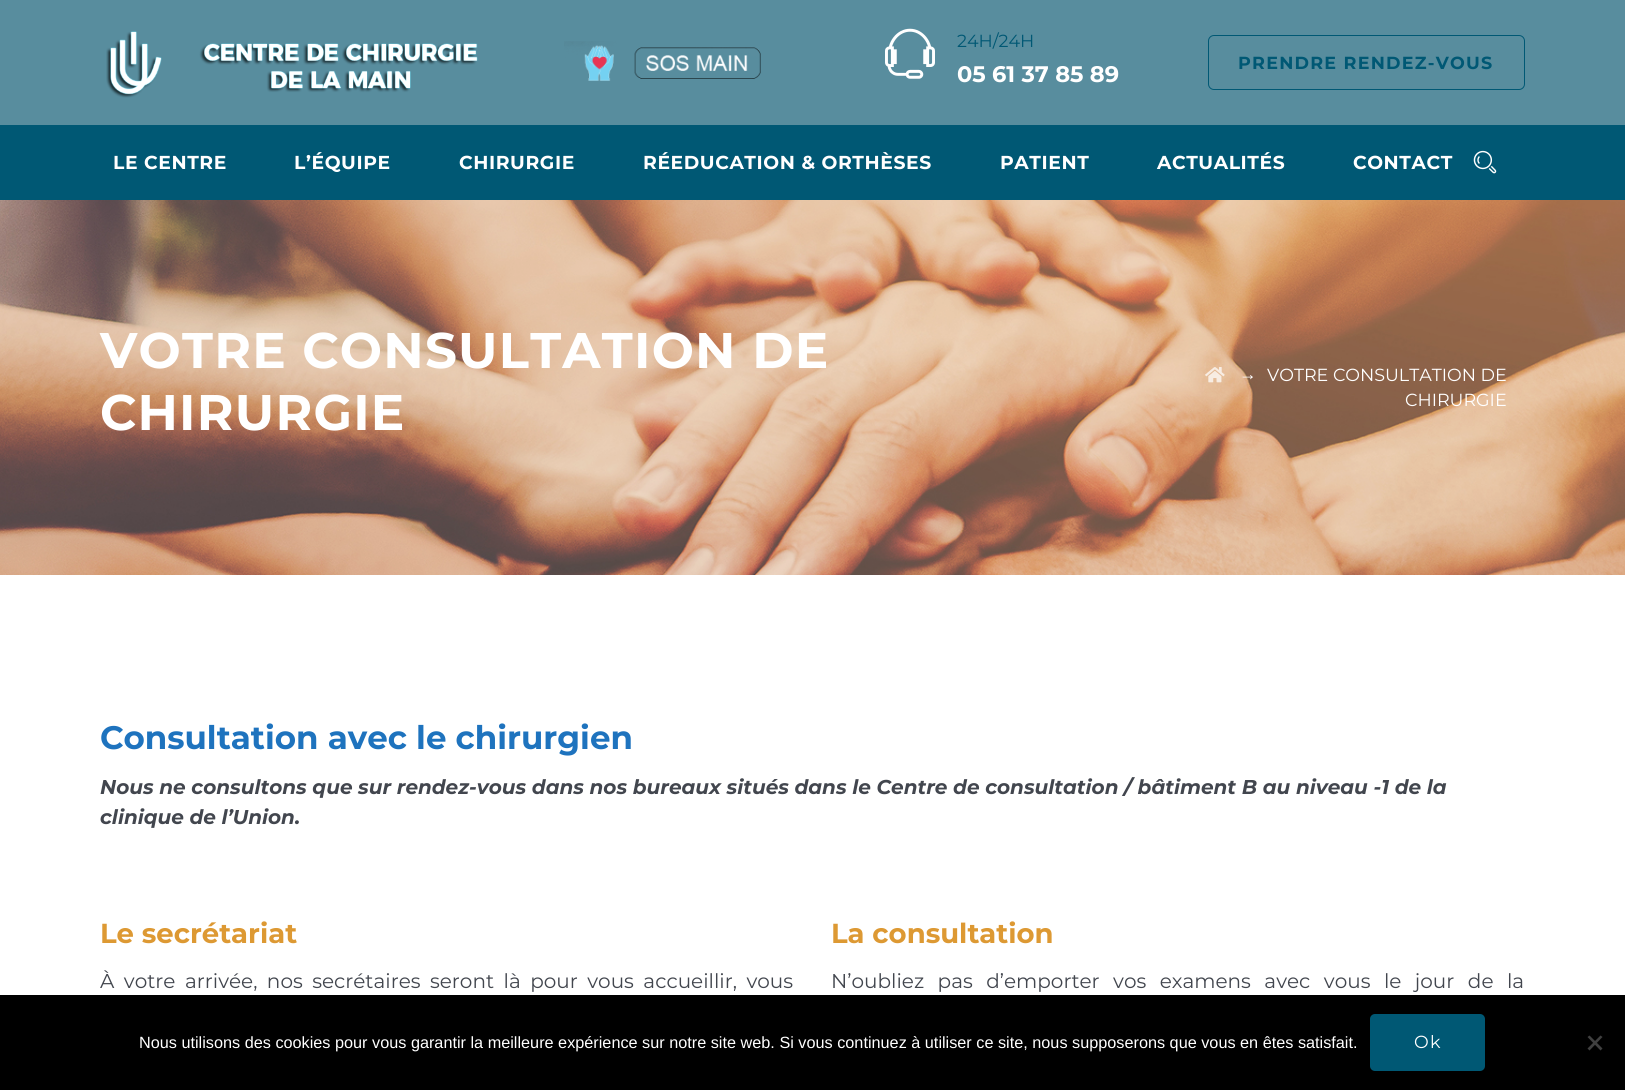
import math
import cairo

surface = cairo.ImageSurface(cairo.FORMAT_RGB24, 1625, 1090)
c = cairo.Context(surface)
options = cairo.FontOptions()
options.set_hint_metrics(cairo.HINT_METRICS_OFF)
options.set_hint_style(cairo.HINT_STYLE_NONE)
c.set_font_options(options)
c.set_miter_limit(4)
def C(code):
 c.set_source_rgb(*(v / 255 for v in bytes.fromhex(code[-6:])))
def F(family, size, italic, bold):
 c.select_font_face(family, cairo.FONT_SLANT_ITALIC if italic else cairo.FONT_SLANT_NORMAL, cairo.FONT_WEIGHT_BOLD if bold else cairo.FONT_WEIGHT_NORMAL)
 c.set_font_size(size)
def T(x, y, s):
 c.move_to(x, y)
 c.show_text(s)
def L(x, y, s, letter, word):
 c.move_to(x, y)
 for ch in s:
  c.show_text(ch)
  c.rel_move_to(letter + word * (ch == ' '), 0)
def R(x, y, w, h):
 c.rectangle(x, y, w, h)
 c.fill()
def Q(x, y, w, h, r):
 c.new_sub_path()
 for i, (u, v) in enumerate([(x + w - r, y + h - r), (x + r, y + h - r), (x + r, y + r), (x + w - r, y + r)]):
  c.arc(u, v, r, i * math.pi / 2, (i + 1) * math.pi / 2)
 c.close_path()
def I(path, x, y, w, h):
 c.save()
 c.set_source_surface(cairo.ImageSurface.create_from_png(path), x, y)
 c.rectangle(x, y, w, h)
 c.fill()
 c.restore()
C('ffffff')
c.paint()
C('588d9e')
R(0,0,1625,125)
I('1.png',106,31,372,67)
I('2.png',564,41,197,40)
I('3.png',885,28,50,51)
F('Montserrat',17.5,0,0)
C('005874')
T(957,47,'24H/24H')
F('Montserrat',22.5,0,1)
C('ffffff')
T(957,82,'05 61 37 85 89')
Q(1208.5,35.5,316,54,5.5)
C('005874')
c.set_line_width(1)
c.stroke()
F('Montserrat',17.5,0,1)
L(1238,69,'PRENDRE RENDEZ-VOUS',1.25,0)
R(0,125,1625,75)
F('Montserrat',18.75,0,1)
C('ffffff')
L(113,169,'LE CENTRE',.6,0)
L(294,169,'L’ÉQUIPE',.6,0)
L(459,169,'CHIRURGIE',.6,0)
L(643,169,'RÉEDUCATION & ORTHÈSES',.6,0)
L(1000,169,'PATIENT',.6,0)
L(1157,169,'ACTUALITÉS',.6,0)
L(1353,169,'CONTACT',.6,0)
I('4.png',1473,150,24,24)
I('5.png',0,200,1625,375)
F('Montserrat',50,0,1)
L(100,368,'VOTRE CONSULTATION DE',1.25,0)
L(100,430,'CHIRURGIE',1.25,0)
I('6.png',1205,367,20,16)
F('Liberation Sans',17.5,0,0)
T(1239,380,'→')
F('Montserrat',17.5,0,0)
T(1267,381,'VOTRE CONSULTATION DE')
T(1405,406,'CHIRURGIE')
F('Montserrat',32.5,0,1)
C('1e73be')
T(100,749,'Consultation avec le chirurgien')
F('Montserrat',20,1,1)
C('42464e')
T(100,794,'Nous ne consultons que sur rendez-vous dans nos bureaux situés dans le Centre de consultation / bâtiment B au niveau -1 de la')
T(100,824,'clinique de l’Union.')
F('Montserrat',27.5,0,1)
C('dd9933')
T(100,943,'Le secrétariat')
F('Montserrat',20,0,0)
C('42464e')
L(100,988,'À votre arrivée, nos secrétaires seront là pour vous accueillir, vous',0,4.25)
F('Montserrat',27.5,0,1)
C('dd9933')
T(831,943,'La consultation')
F('Montserrat',20,0,0)
C('42464e')
L(831,988,'N’oubliez pas d’emporter vos examens avec vous le jour de la',0,8.25)
C('000000')
R(0,995,1625,95)
F('Liberation Sans',16.25,0,0)
C('ffffff')
T(139,1048,'Nous utilisons des cookies pour vous garantir la meilleure expérience sur notre site web. Si vous continuez à utiliser ce site, nous supposerons que vous en êtes satisfait.')
C('005874')
Q(1370,1014,115,57,5)
c.fill()
F('Montserrat',17.5,0,0)
C('ffffff')
L(1414,1048,'Ok',1.25,0)
C('404040')
c.new_path()
c.move_to(1600.5,1035.5)
c.line_to(1602.5,1037)
c.line_to(1589.5,1050.5)
c.line_to(1587.5,1048.5)
c.close_path()
c.fill()
c.new_path()
c.move_to(1587.5,1037)
c.line_to(1589.5,1035.5)
c.line_to(1602.5,1048.5)
c.line_to(1600.5,1050.5)
c.close_path()
c.fill()
surface.write_to_png('o.png')
